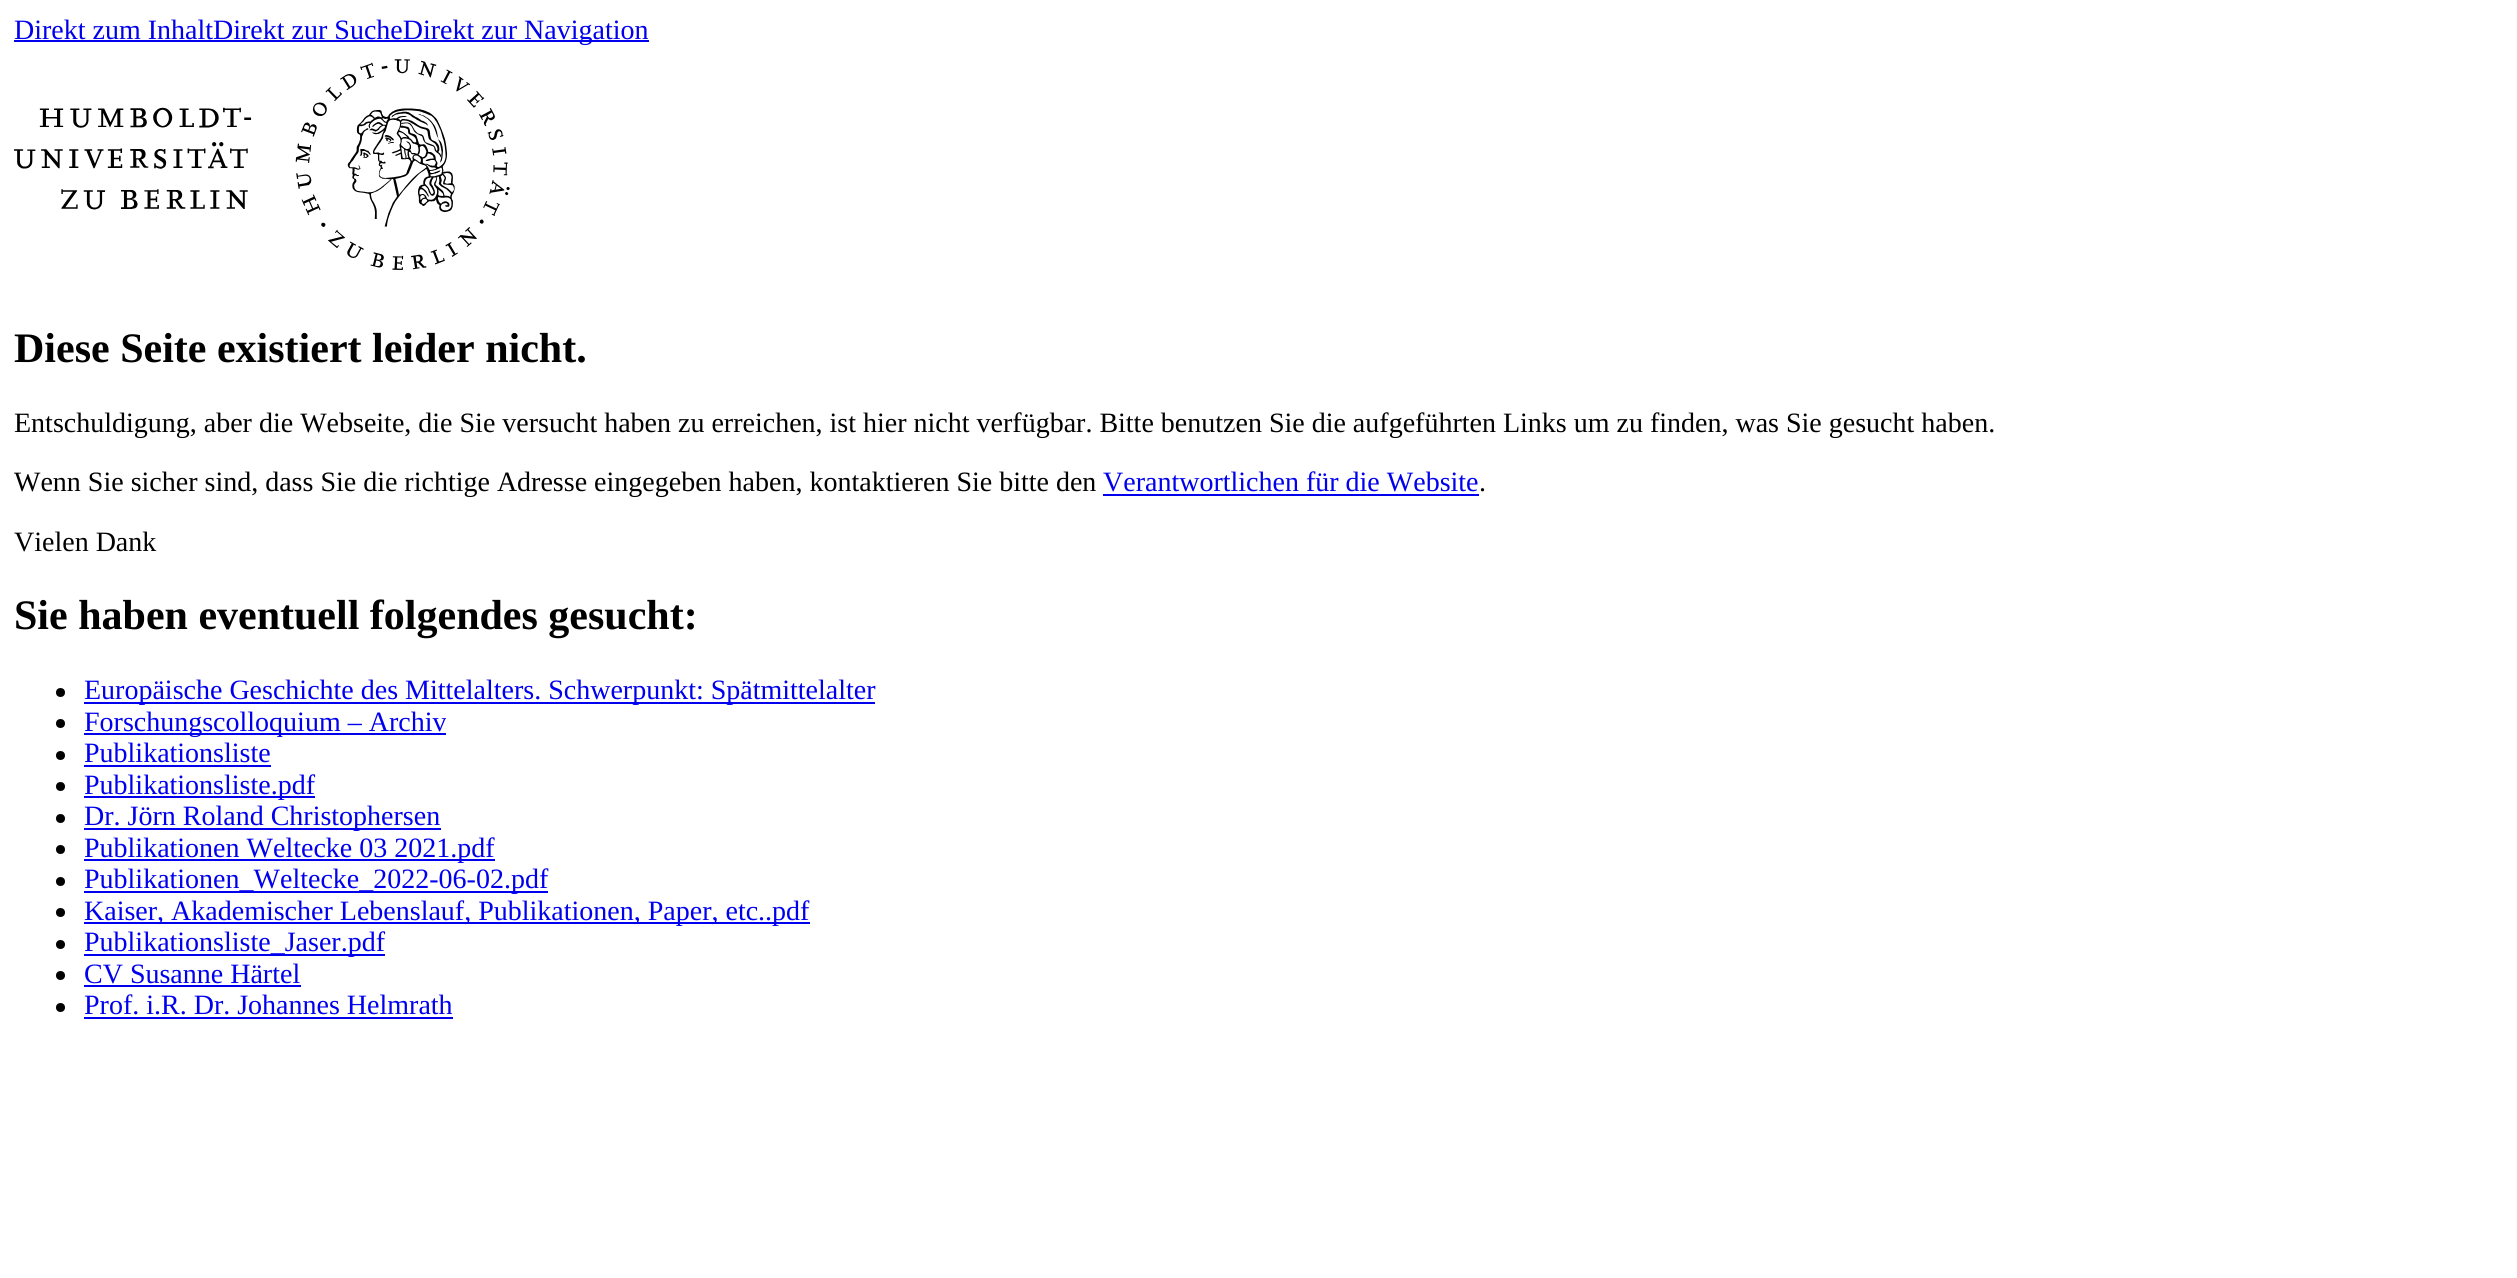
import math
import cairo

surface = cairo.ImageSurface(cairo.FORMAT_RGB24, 2517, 1278)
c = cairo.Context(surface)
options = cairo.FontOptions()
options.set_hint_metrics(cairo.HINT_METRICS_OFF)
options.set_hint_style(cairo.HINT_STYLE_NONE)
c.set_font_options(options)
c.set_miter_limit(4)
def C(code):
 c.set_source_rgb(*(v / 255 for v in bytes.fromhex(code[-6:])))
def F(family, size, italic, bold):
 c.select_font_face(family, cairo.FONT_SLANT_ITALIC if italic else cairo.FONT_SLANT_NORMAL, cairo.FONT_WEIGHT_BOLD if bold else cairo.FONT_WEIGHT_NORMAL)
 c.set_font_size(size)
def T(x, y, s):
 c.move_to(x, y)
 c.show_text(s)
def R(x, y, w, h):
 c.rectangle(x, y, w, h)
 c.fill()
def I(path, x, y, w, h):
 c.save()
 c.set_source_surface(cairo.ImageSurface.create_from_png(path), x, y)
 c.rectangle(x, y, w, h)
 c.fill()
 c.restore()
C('ffffff')
c.paint()
C('0000ee')
R(14,40,635,2)
F('Liberation Serif',28,0,0)
T(14,39,'Direkt zum InhaltDirekt zur SucheDirekt zur Navigation')
I('1.png',14,59,496,211)
F('Liberation Serif',42,0,1)
C('000000')
T(14,362,'Diese Seite existiert leider nicht.')
F('Liberation Serif',28,0,0)
T(14,432,'Entschuldigung, aber die Webseite, die Sie versucht haben zu erreichen, ist hier nicht verfügbar. Bitte benutzen Sie die aufgeführten Links um zu finden, was Sie gesucht haben.')
T(14,491,'Wenn Sie sicher sind, dass Sie die richtige Adresse eingegeben haben, kontaktieren Sie bitte den')
C('0000ee')
T(1103,491,'Verantwortlichen für die Website')
R(1103,494,376,2)
C('000000')
T(1479,491,'.')
T(14,551,'Vielen Dank')
F('Liberation Serif',42,0,1)
T(14,629,'Sie haben eventuell folgendes gesucht:')
c.new_path()
c.arc(60.5,692.5,4.5,0,2 * math.pi)
c.fill()
C('0000ee')
R(84,702,791,2)
F('Liberation Serif',28,0,0)
T(84,699,'Europäische Geschichte des Mittelalters. Schwerpunkt: Spätmittelalter')
C('000000')
c.new_path()
c.arc(60.5,723.5,4.5,0,2 * math.pi)
c.fill()
C('0000ee')
R(84,733,362,2)
T(84,731,'Forschungscolloquium – Archiv')
C('000000')
c.new_path()
c.arc(60.5,755.5,4.5,0,2 * math.pi)
c.fill()
C('0000ee')
T(84,762,'Publikationsliste')
R(84,765,187,2)
C('000000')
c.new_path()
c.arc(60.5,786.5,4.5,0,2 * math.pi)
c.fill()
C('0000ee')
R(84,796,231,2)
T(84,794,'Publikationsliste.pdf')
C('000000')
c.new_path()
c.arc(60.5,818.5,4.5,0,2 * math.pi)
c.fill()
C('0000ee')
R(84,828,357,2)
T(84,825,'Dr. Jörn Roland Christophersen')
C('000000')
c.new_path()
c.arc(60.5,849.5,4.5,0,2 * math.pi)
c.fill()
C('0000ee')
R(84,859,411,2)
T(84,857,'Publikationen Weltecke 03 2021.pdf')
C('000000')
c.new_path()
c.arc(60.5,881.5,4.5,0,2 * math.pi)
c.fill()
C('0000ee')
R(84,891,464,2)
T(84,888,'Publikationen_Weltecke_2022-06-02.pdf')
C('000000')
c.new_path()
c.arc(60.5,912.5,4.5,0,2 * math.pi)
c.fill()
C('0000ee')
R(84,922,726,2)
T(84,920,'Kaiser, Akademischer Lebenslauf, Publikationen, Paper, etc..pdf')
C('000000')
c.new_path()
c.arc(60.5,944.5,4.5,0,2 * math.pi)
c.fill()
C('0000ee')
R(84,954,301,2)
T(84,951,'Publikationsliste_Jaser.pdf')
C('000000')
c.new_path()
c.arc(60.5,975.5,4.5,0,2 * math.pi)
c.fill()
C('0000ee')
T(84,983,'CV Susanne Härtel')
R(84,985,217,2)
C('000000')
c.new_path()
c.arc(60.5,1007.5,4.5,0,2 * math.pi)
c.fill()
C('0000ee')
T(84,1014,'Prof. i.R. Dr. Johannes Helmrath')
R(84,1017,369,2)
surface.write_to_png('o.png')
